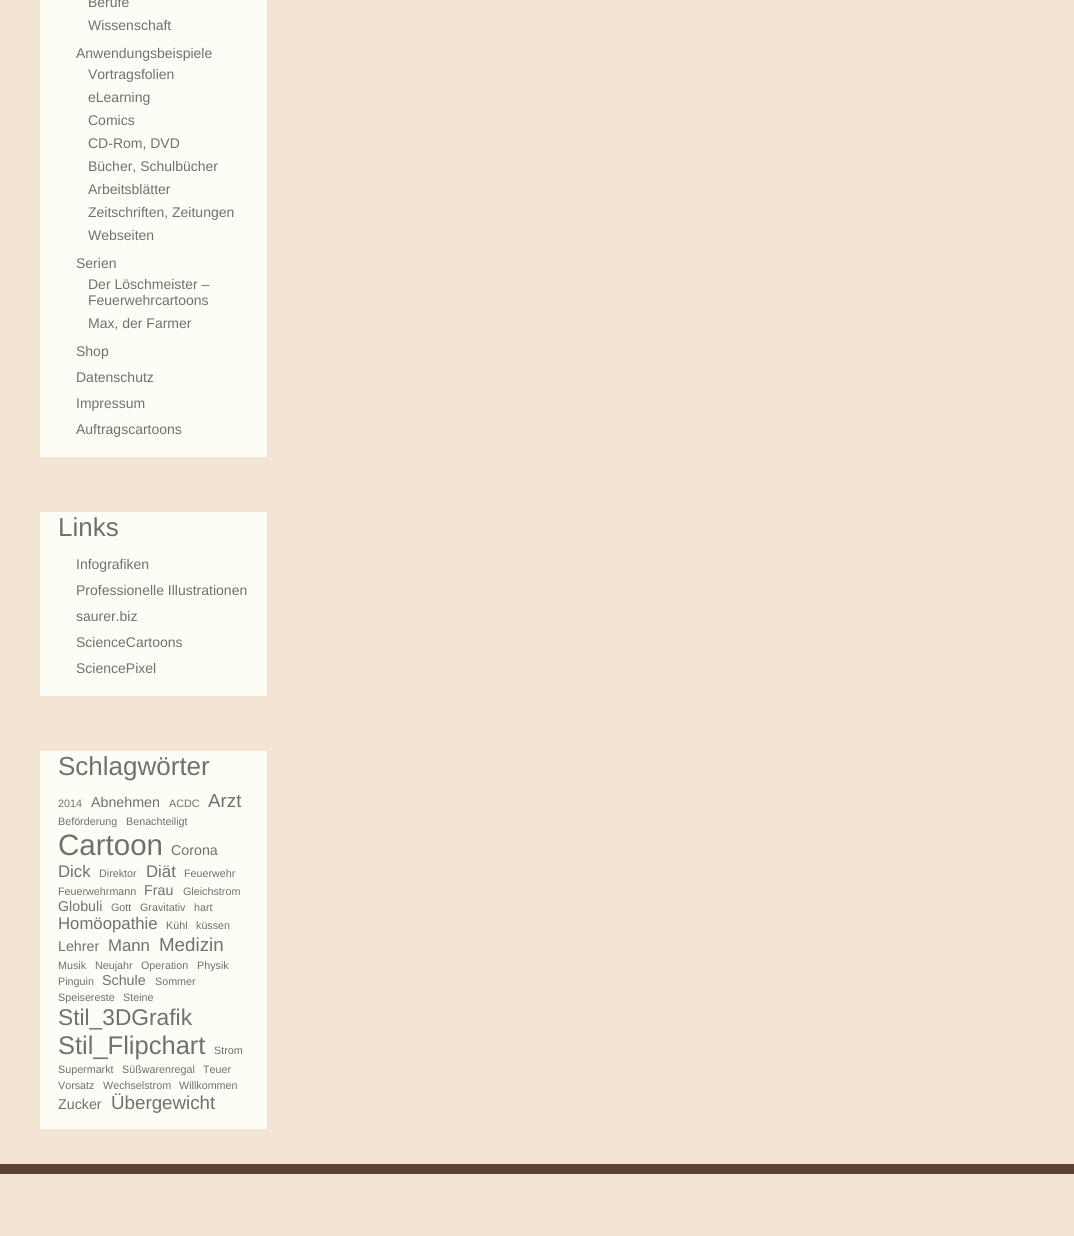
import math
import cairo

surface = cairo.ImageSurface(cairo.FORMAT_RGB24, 1074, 1236)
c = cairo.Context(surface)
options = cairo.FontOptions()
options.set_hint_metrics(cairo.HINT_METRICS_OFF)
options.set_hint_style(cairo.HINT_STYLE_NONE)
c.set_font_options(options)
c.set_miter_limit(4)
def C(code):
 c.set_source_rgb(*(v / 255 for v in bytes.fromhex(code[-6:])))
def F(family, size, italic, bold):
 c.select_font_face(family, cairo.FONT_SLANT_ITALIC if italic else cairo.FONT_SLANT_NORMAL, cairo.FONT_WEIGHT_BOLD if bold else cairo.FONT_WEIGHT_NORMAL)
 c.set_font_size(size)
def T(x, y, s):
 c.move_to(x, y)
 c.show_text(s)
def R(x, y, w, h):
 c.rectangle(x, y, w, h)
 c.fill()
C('f3e4d4')
c.paint()
C('fdfcf5')
R(40,0,227,457)
F('Liberation Sans',14,0,0)
C('707070')
T(88,7,'Berufe')
T(88,30,'Wissenschaft')
T(76,58,'Anwendungsbeispiele')
T(88,79,'Vortragsfolien')
T(88,102,'eLearning')
T(88,125,'Comics')
T(88,148,'CD-Rom, DVD')
T(88,171,'Bücher, Schulbücher')
T(88,194,'Arbeitsblätter')
T(88,217,'Zeitschriften, Zeitungen')
T(88,240,'Webseiten')
T(76,268,'Serien')
T(88,289,'Der Löschmeister –')
T(88,305,'Feuerwehrcartoons')
T(88,328,'Max, der Farmer')
T(76,356,'Shop')
T(76,382,'Datenschutz')
T(76,408,'Impressum')
T(76,434,'Auftragscartoons')
C('fdfcf5')
R(40,512,227,184)
F('Liberation Sans',26,0,0)
C('707070')
T(58,536,'Links')
F('Liberation Sans',14,0,0)
T(76,569,'Infografiken')
T(76,595,'Professionelle Illustrationen')
T(76,621,'saurer.biz')
T(76,647,'ScienceCartoons')
T(76,673,'SciencePixel')
C('fdfcf5')
R(40,751,227,378)
F('Liberation Sans',26,0,0)
C('707070')
T(58,775,'Schlagwörter')
F('Liberation Sans',10.75,0,0)
T(58,807,'2014')
F('Liberation Sans',14.25,0,0)
T(91,807,'Abnehmen')
F('Liberation Sans',10.75,0,0)
T(169,807,'ACDC')
F('Liberation Sans',18.75,0,0)
T(208,807,'Arzt')
F('Liberation Sans',10.75,0,0)
T(58,825,'Beförderung')
T(126,825,'Benachteiligt')
F('Liberation Sans',29.5,0,0)
T(58,855,'Cartoon')
F('Liberation Sans',14.25,0,0)
T(171,855,'Corona')
F('Liberation Sans',16.75,0,0)
T(58,877,'Dick')
F('Liberation Sans',10.75,0,0)
T(99,877,'Direktor')
F('Liberation Sans',16.75,0,0)
T(146,877,'Diät')
F('Liberation Sans',10.75,0,0)
T(184,877,'Feuerwehr')
T(58,895,'Feuerwehrmann')
F('Liberation Sans',14.25,0,0)
T(144,895,'Frau')
F('Liberation Sans',10.75,0,0)
T(183,895,'Gleichstrom')
F('Liberation Sans',14.25,0,0)
T(58,911,'Globuli')
F('Liberation Sans',10.75,0,0)
T(111,911,'Gott')
T(140,911,'Gravitativ')
T(194,911,'hart')
F('Liberation Sans',16.75,0,0)
T(58,929,'Homöopathie')
F('Liberation Sans',10.75,0,0)
T(166,929,'Kühl')
T(196,929,'küssen')
F('Liberation Sans',14.25,0,0)
T(58,951,'Lehrer')
F('Liberation Sans',16.75,0,0)
T(108,951,'Mann')
F('Liberation Sans',18.75,0,0)
T(159,951,'Medizin')
F('Liberation Sans',10.75,0,0)
T(58,969,'Musik')
T(95,969,'Neujahr')
T(141,969,'Operation')
T(197,969,'Physik')
T(58,985,'Pinguin')
F('Liberation Sans',14.25,0,0)
T(102,985,'Schule')
F('Liberation Sans',10.75,0,0)
T(155,985,'Sommer')
T(58,1001,'Speisereste')
T(123,1001,'Steine')
F('Liberation Sans',22.75,0,0)
T(58,1025,'Stil_3DGrafik')
F('Liberation Sans',25.5,0,0)
T(58,1054,'Stil_Flipchart')
F('Liberation Sans',10.75,0,0)
T(214,1054,'Strom')
T(58,1073,'Supermarkt')
T(122,1073,'Süßwarenregal')
T(203,1073,'Teuer')
T(58,1089,'Vorsatz')
T(103,1089,'Wechselstrom')
T(179,1089,'Willkommen')
F('Liberation Sans',14.25,0,0)
T(58,1109,'Zucker')
F('Liberation Sans',18.75,0,0)
T(111,1109,'Übergewicht')
C('5f4233')
R(0,1164,1074,10)
surface.write_to_png('o.png')
